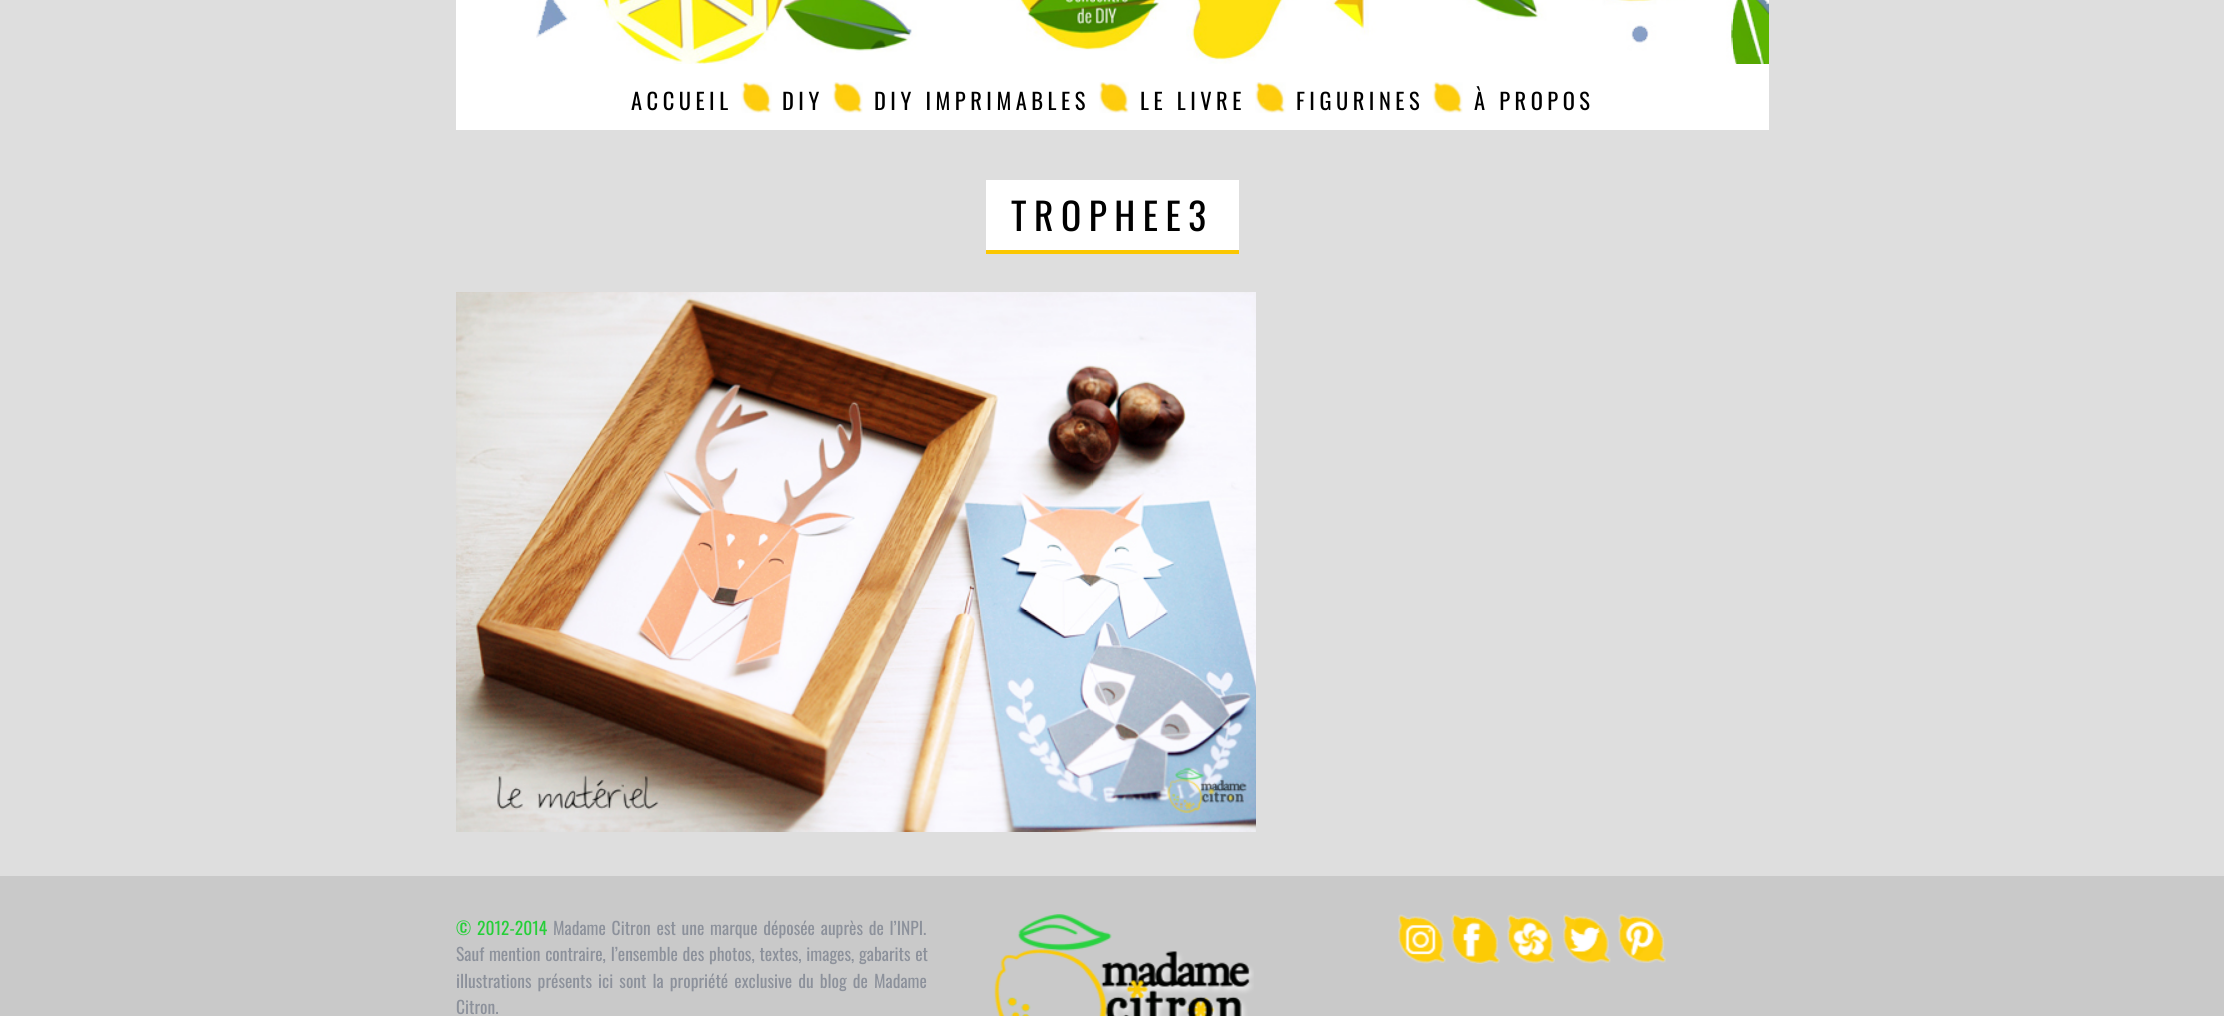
import math
import cairo

surface = cairo.ImageSurface(cairo.FORMAT_RGB24, 2224, 1016)
c = cairo.Context(surface)
options = cairo.FontOptions()
options.set_hint_metrics(cairo.HINT_METRICS_OFF)
options.set_hint_style(cairo.HINT_STYLE_NONE)
c.set_font_options(options)
c.set_miter_limit(4)
def C(code):
 c.set_source_rgb(*(v / 255 for v in bytes.fromhex(code[-6:])))
def F(family, size, italic, bold):
 c.select_font_face(family, cairo.FONT_SLANT_ITALIC if italic else cairo.FONT_SLANT_NORMAL, cairo.FONT_WEIGHT_BOLD if bold else cairo.FONT_WEIGHT_NORMAL)
 c.set_font_size(size)
def T(x, y, s):
 c.move_to(x, y)
 c.show_text(s)
def L(x, y, s, letter, word):
 c.move_to(x, y)
 for ch in s:
  c.show_text(ch)
  c.rel_move_to(letter + word * (ch == ' '), 0)
def R(x, y, w, h):
 c.rectangle(x, y, w, h)
 c.fill()
def I(path, x, y, w, h):
 c.save()
 c.set_source_surface(cairo.ImageSurface.create_from_png(path), x, y)
 c.rectangle(x, y, w, h)
 c.fill()
 c.restore()
C('dedede')
c.paint()
I('1.png',456,0,1313,64)
C('ffffff')
R(456,64,1313,66)
F('Oswald',22.5,0,0)
C('000000')
L(631,110,'ACCUEIL',4.5,0)
I('2.png',741,82,31,31)
L(782,110,'DIY',4.5,0)
I('3.png',833,82,30,31)
L(874,110,'DIY IMPRIMABLES',4.5,0)
I('4.png',1099,82,30,31)
L(1140,110,'LE LIVRE',4.5,0)
I('5.png',1255,82,31,31)
L(1296,110,'FIGURINES',4.5,0)
I('3.png',1433,82,30,31)
L(1474,110,'À PROPOS',4.5,0)
C('ffffff')
R(986,180,253,70)
C('fbc701')
R(986,250,253,4)
F('Oswald',37.5,0,0)
C('000000')
L(1011,231,'TROPHEE3',7.5,0)
I('6.png',456,292,800,540)
C('c9c9c9')
R(0,876,2224,140)
F('Oswald',17.5,0,0)
C('25cf38')
L(456,935,'© 2012-2014',0,2)
C('8c919b')
L(553,935,'Madame Citron est une marque déposée auprès de l’INPI.',0,1.75)
L(456,961,'Sauf mention contraire, l’ensemble des photos, textes, images, gabarits et',0,.75)
L(456,988,'illustrations présents ici sont la propriété exclusive du blog de Madame',0,2.1)
T(456,1014,'Citron.')
I('7.png',994,914,260,102)
I('8.png',1398,914,48,50)
I('9.png',1451,914,49,50)
I('10.png',1507,914,48,50)
I('11.png',1563,914,48,50)
I('12.png',1618,914,48,49)
surface.write_to_png('o.png')
